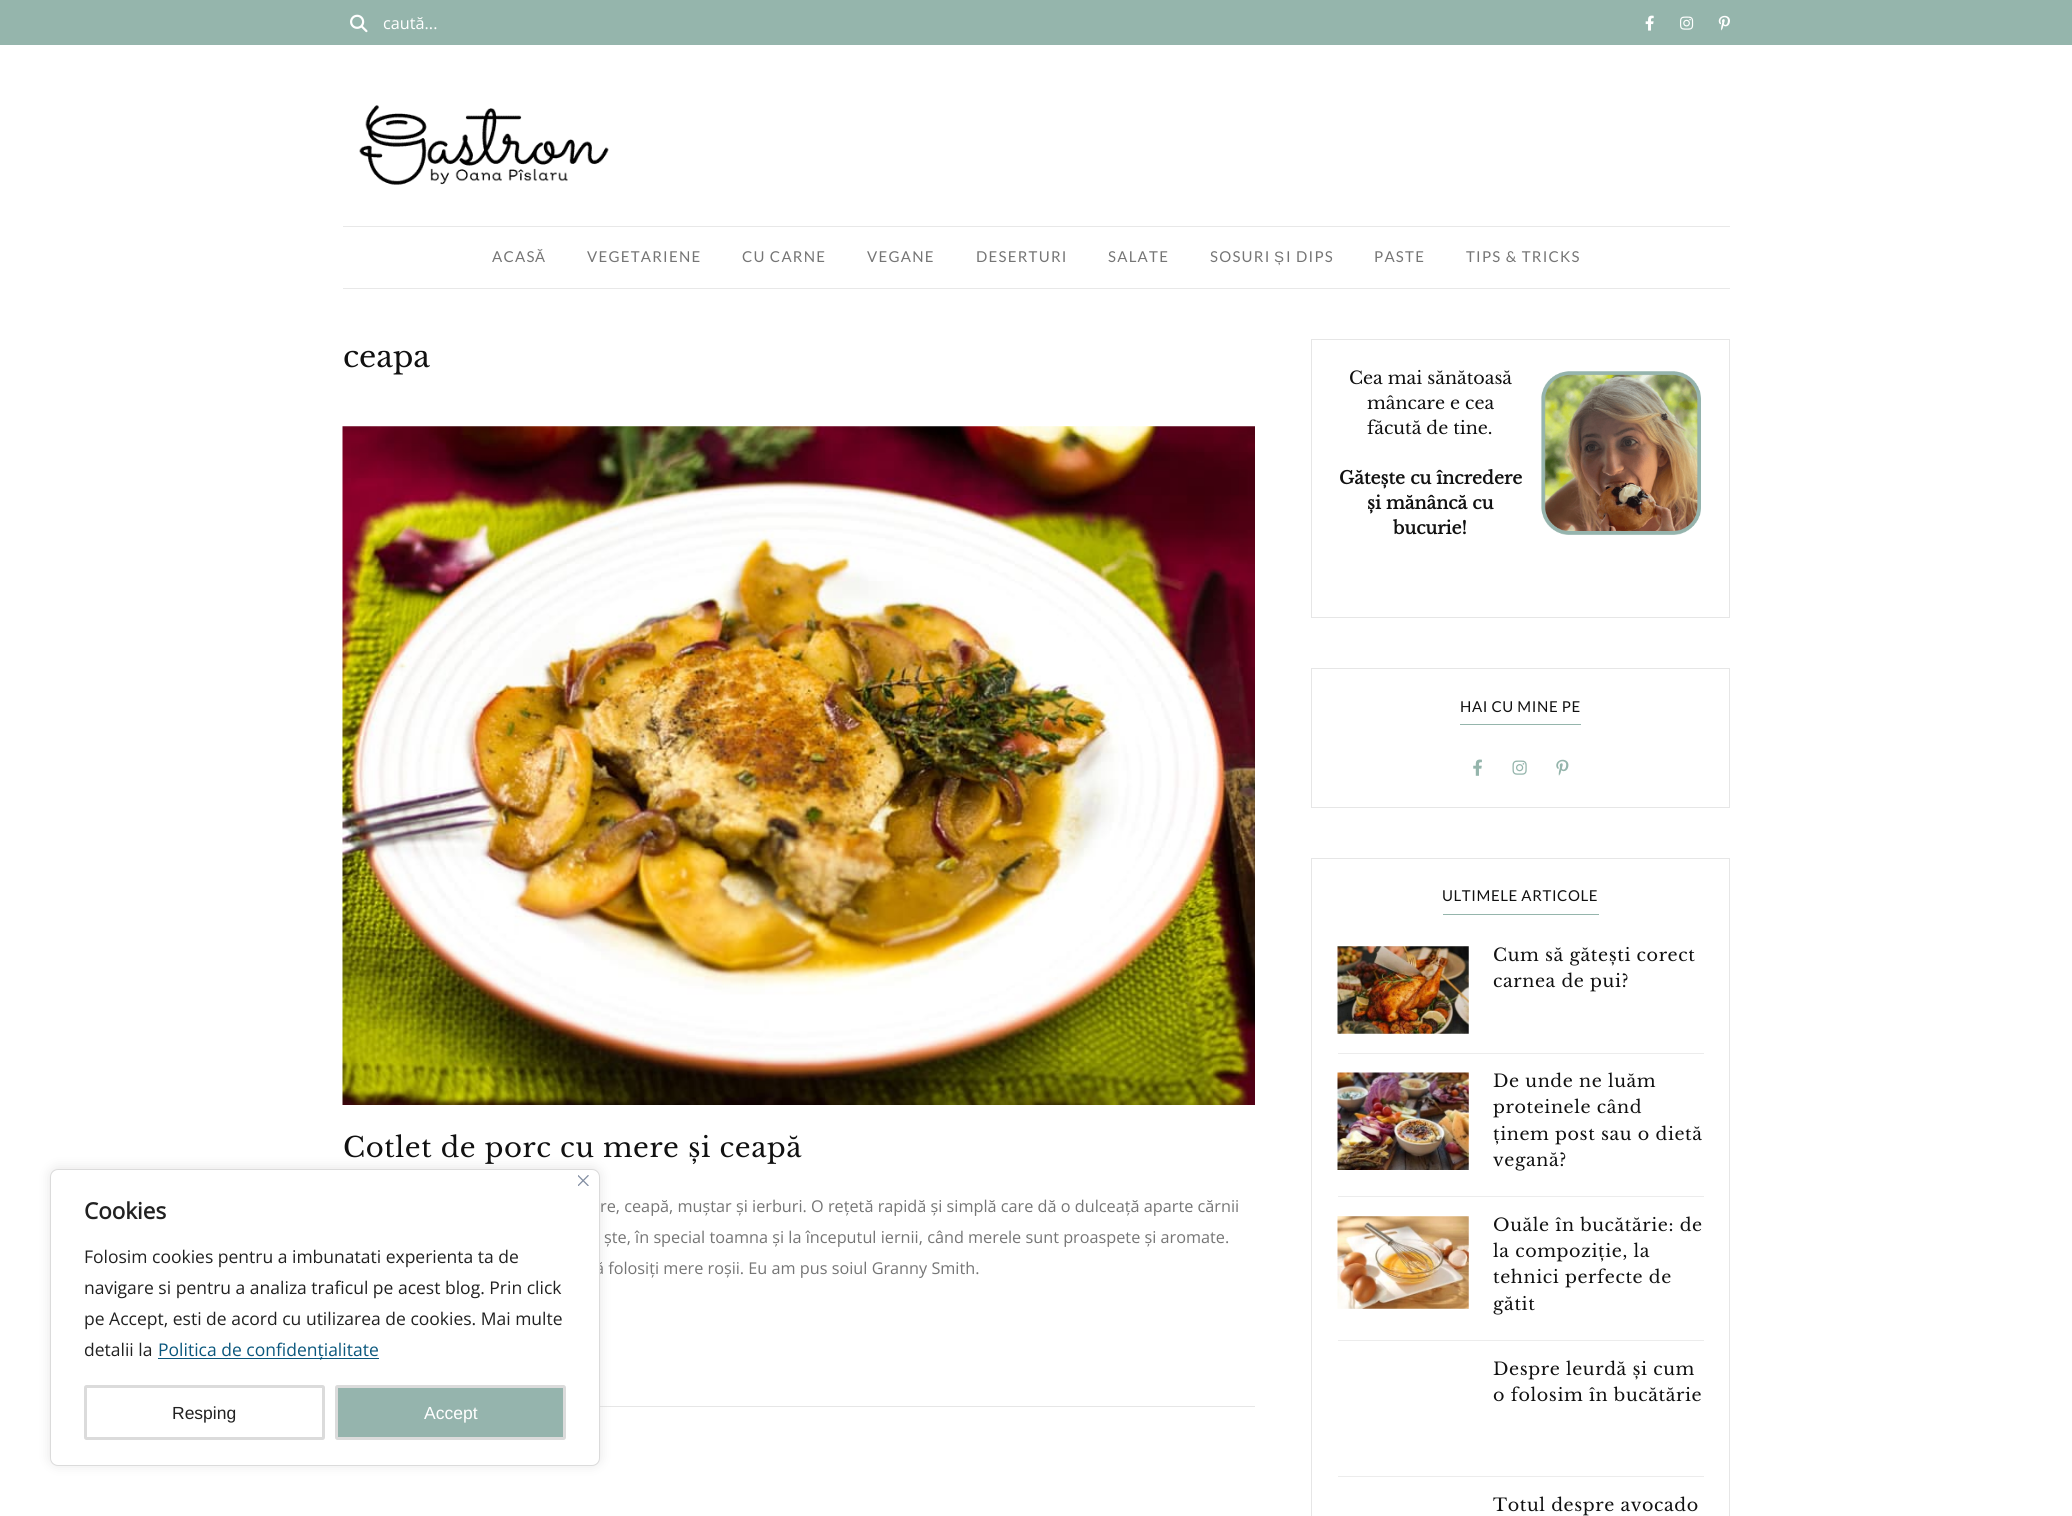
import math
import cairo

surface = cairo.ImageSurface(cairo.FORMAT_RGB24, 2072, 1516)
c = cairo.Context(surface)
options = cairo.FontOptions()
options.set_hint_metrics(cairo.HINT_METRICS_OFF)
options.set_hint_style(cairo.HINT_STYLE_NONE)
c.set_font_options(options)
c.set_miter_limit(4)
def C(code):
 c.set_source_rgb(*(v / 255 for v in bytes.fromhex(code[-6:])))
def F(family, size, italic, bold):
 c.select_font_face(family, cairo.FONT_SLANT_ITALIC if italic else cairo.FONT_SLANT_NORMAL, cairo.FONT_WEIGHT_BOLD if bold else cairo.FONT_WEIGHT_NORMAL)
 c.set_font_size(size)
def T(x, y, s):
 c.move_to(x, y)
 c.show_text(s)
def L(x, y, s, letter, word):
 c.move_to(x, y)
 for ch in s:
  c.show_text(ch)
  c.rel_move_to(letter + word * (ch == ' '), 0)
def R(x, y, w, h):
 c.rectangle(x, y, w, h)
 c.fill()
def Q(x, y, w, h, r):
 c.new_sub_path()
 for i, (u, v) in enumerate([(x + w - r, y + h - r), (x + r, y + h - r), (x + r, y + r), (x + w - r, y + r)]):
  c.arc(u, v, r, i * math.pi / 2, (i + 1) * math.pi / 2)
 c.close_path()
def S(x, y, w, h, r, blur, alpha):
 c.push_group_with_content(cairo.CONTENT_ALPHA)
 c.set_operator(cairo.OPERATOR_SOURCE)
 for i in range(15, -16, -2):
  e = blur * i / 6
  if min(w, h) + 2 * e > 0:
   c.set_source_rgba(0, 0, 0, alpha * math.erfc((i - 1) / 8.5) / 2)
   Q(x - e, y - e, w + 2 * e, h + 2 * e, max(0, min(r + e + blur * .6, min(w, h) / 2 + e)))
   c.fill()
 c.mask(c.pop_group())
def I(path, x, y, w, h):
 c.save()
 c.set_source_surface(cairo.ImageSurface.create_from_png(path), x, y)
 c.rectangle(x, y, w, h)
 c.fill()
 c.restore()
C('ffffff')
c.paint()
C('95b5ac')
R(0,0,2072,45)
I('1.png',350,14,18,19)
F('Open Sans',16.25,0,0)
C('ffffff')
T(383,29,'caută...')
I('2.png',1645,15,9,16)
I('3.png',1680,16,14,14)
I('4.png',1718,15,12,16)
I('5.png',359,105,250,80)
C('e8e8e8')
R(343,226,1387,1)
R(343,288,1387,1)
F('Lato',15,0,0)
C('757575')
L(492,262,'ACAS',1.25,0)
F('Liberation Sans',15,0,0)
L(535,262,'Ă',1.25,0)
F('Lato',15,0,0)
L(587,262,'VEGETARIENE',1.25,0)
L(742,262,'CU CARNE',1.25,0)
L(867,262,'VEGANE',1.25,0)
L(976,262,'DESERTURI',1.25,0)
L(1108,262,'SALATE',1.25,0)
L(1210,262,'SOSURI',1.25,0)
F('Liberation Sans',15,0,0)
L(1274,262,'Ș',1.25,0)
F('Lato',15,0,0)
L(1286,262,'I DIPS',1.25,0)
L(1374,262,'PASTE',1.25,0)
L(1466,262,'TIPS & TRICKS',1.25,0)
C('e6e6e6')
R(600,1406,655,1)
C('acabab')
S(50,1168,550,297,8,6,.3)
F('Open Sans',16.25,0,0)
C('757575')
T(595,1274,'ă folosiți mere roșii. Eu am pus soiul Granny Smith.')
C('ffffff')
Q(50.5,1169.5,549,296,7.5)
c.fill_preserve()
C('dbdbdb')
c.set_line_width(1)
c.stroke()
I('6.png',578,1175,11,11)
F('Open Sans',22.5,0,1)
C('212121')
T(84,1219,'Cookies')
F('Open Sans',17.5,0,0)
T(84,1263,'Folosim cookies pentru a imbunatati experienta ta de')
T(84,1294,'navigare si pentru a analiza traficul pe acest blog. Prin click')
T(84,1325,'pe Accept, esti de acord cu utilizarea de cookies. Mai multe')
T(84,1356,'detalii la')
C('0a577d')
R(158,1358,221,1)
T(158,1356,'Politica de confidențialitate')
Q(85.5,1386.5,238,52,1)
C('dbdbdb')
c.set_line_width(3)
c.stroke()
F('Liberation Sans',17.5,0,0)
C('212121')
T(172,1419,'Resping')
C('95b4ad')
Q(336.5,1386.5,228,52,1)
c.fill_preserve()
C('dbdbdb')
c.stroke()
C('ffffff')
T(424,1419,'Accept')
F('Libre Baskerville',30,0,0)
C('111111')
T(343,367,'ceapa')
I('7.png',342,426,913,679)
F('Libre Baskerville',27.5,0,0)
L(343,1157,'Cotlet de porc cu mere și ceapă',.6,0)
F('Open Sans',16.25,0,0)
C('757575')
T(600,1212,'re, ceapă, muștar și ierburi. O rețetă rapidă și simplă care dă o dulceață aparte cărnii')
T(604,1243,'ște, în special toamna și la începutul iernii, când merele sunt proaspete și aromate.')
c.rectangle(1311.5,339.5,418,278)
C('e6e6e6')
c.set_line_width(1)
c.stroke()
F('Libre Baskerville',17.5,0,0)
C('111111')
T(1349,384,'Cea mai sănătoasă')
T(1367,409,'mâncare e cea')
T(1367,434,'făcută de tine.')
F('Libre Baskerville',17.5,0,1)
T(1339,484,'Gătește cu încredere')
T(1367,509,'și mănâncă cu')
T(1393,534,'bucurie!')
I('8.png',1541,371,160,164)
c.rectangle(1311.5,668.5,418,139)
C('e6e6e6')
c.stroke()
C('95b5ac')
R(1460,724,121,1)
F('Lato',15,0,0)
C('111111')
L(1460,712,'HAI CU MINE PE',.6,0)
I('9.png',1473,759,9,17)
I('10.png',1512,760,15,15)
I('11.png',1556,759,13,17)
c.rectangle(1311.5,858.5,418,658)
C('e6e6e6')
c.stroke()
C('95b5ac')
R(1443,914,156,1)
C('111111')
L(1442,901,'ULTIMELE ARTICOLE',.6,0)
I('12.png',1337,946,132,88)
F('Libre Baskerville',17.5,0,0)
L(1493,961,'Cum să gătești corect',.6,0)
L(1493,987,'carnea de pui?',.6,0)
C('ececec')
R(1338,1053,366,1)
I('13.png',1337,1072,132,98)
C('111111')
L(1493,1087,'De unde ne luăm',.6,0)
L(1493,1113,'proteinele când',.6,0)
L(1493,1140,'ținem post sau o dietă',.6,0)
L(1493,1166,'vegană?',.6,0)
C('ececec')
R(1338,1196,366,1)
I('14.png',1337,1216,132,93)
C('111111')
L(1493,1231,'Ouăle în bucătărie: de',.6,0)
L(1493,1257,'la compoziție, la',.6,0)
L(1493,1283,'tehnici perfecte de',.6,0)
L(1493,1310,'gătit',.6,0)
C('ececec')
R(1338,1340,366,1)
C('111111')
L(1493,1375,'Despre leurdă și cum',.6,0)
L(1493,1401,'o folosim în bucătărie',.6,0)
C('ececec')
R(1338,1476,366,1)
C('111111')
L(1493,1511,'Totul despre avocado',.6,0)
surface.write_to_png('o.png')
